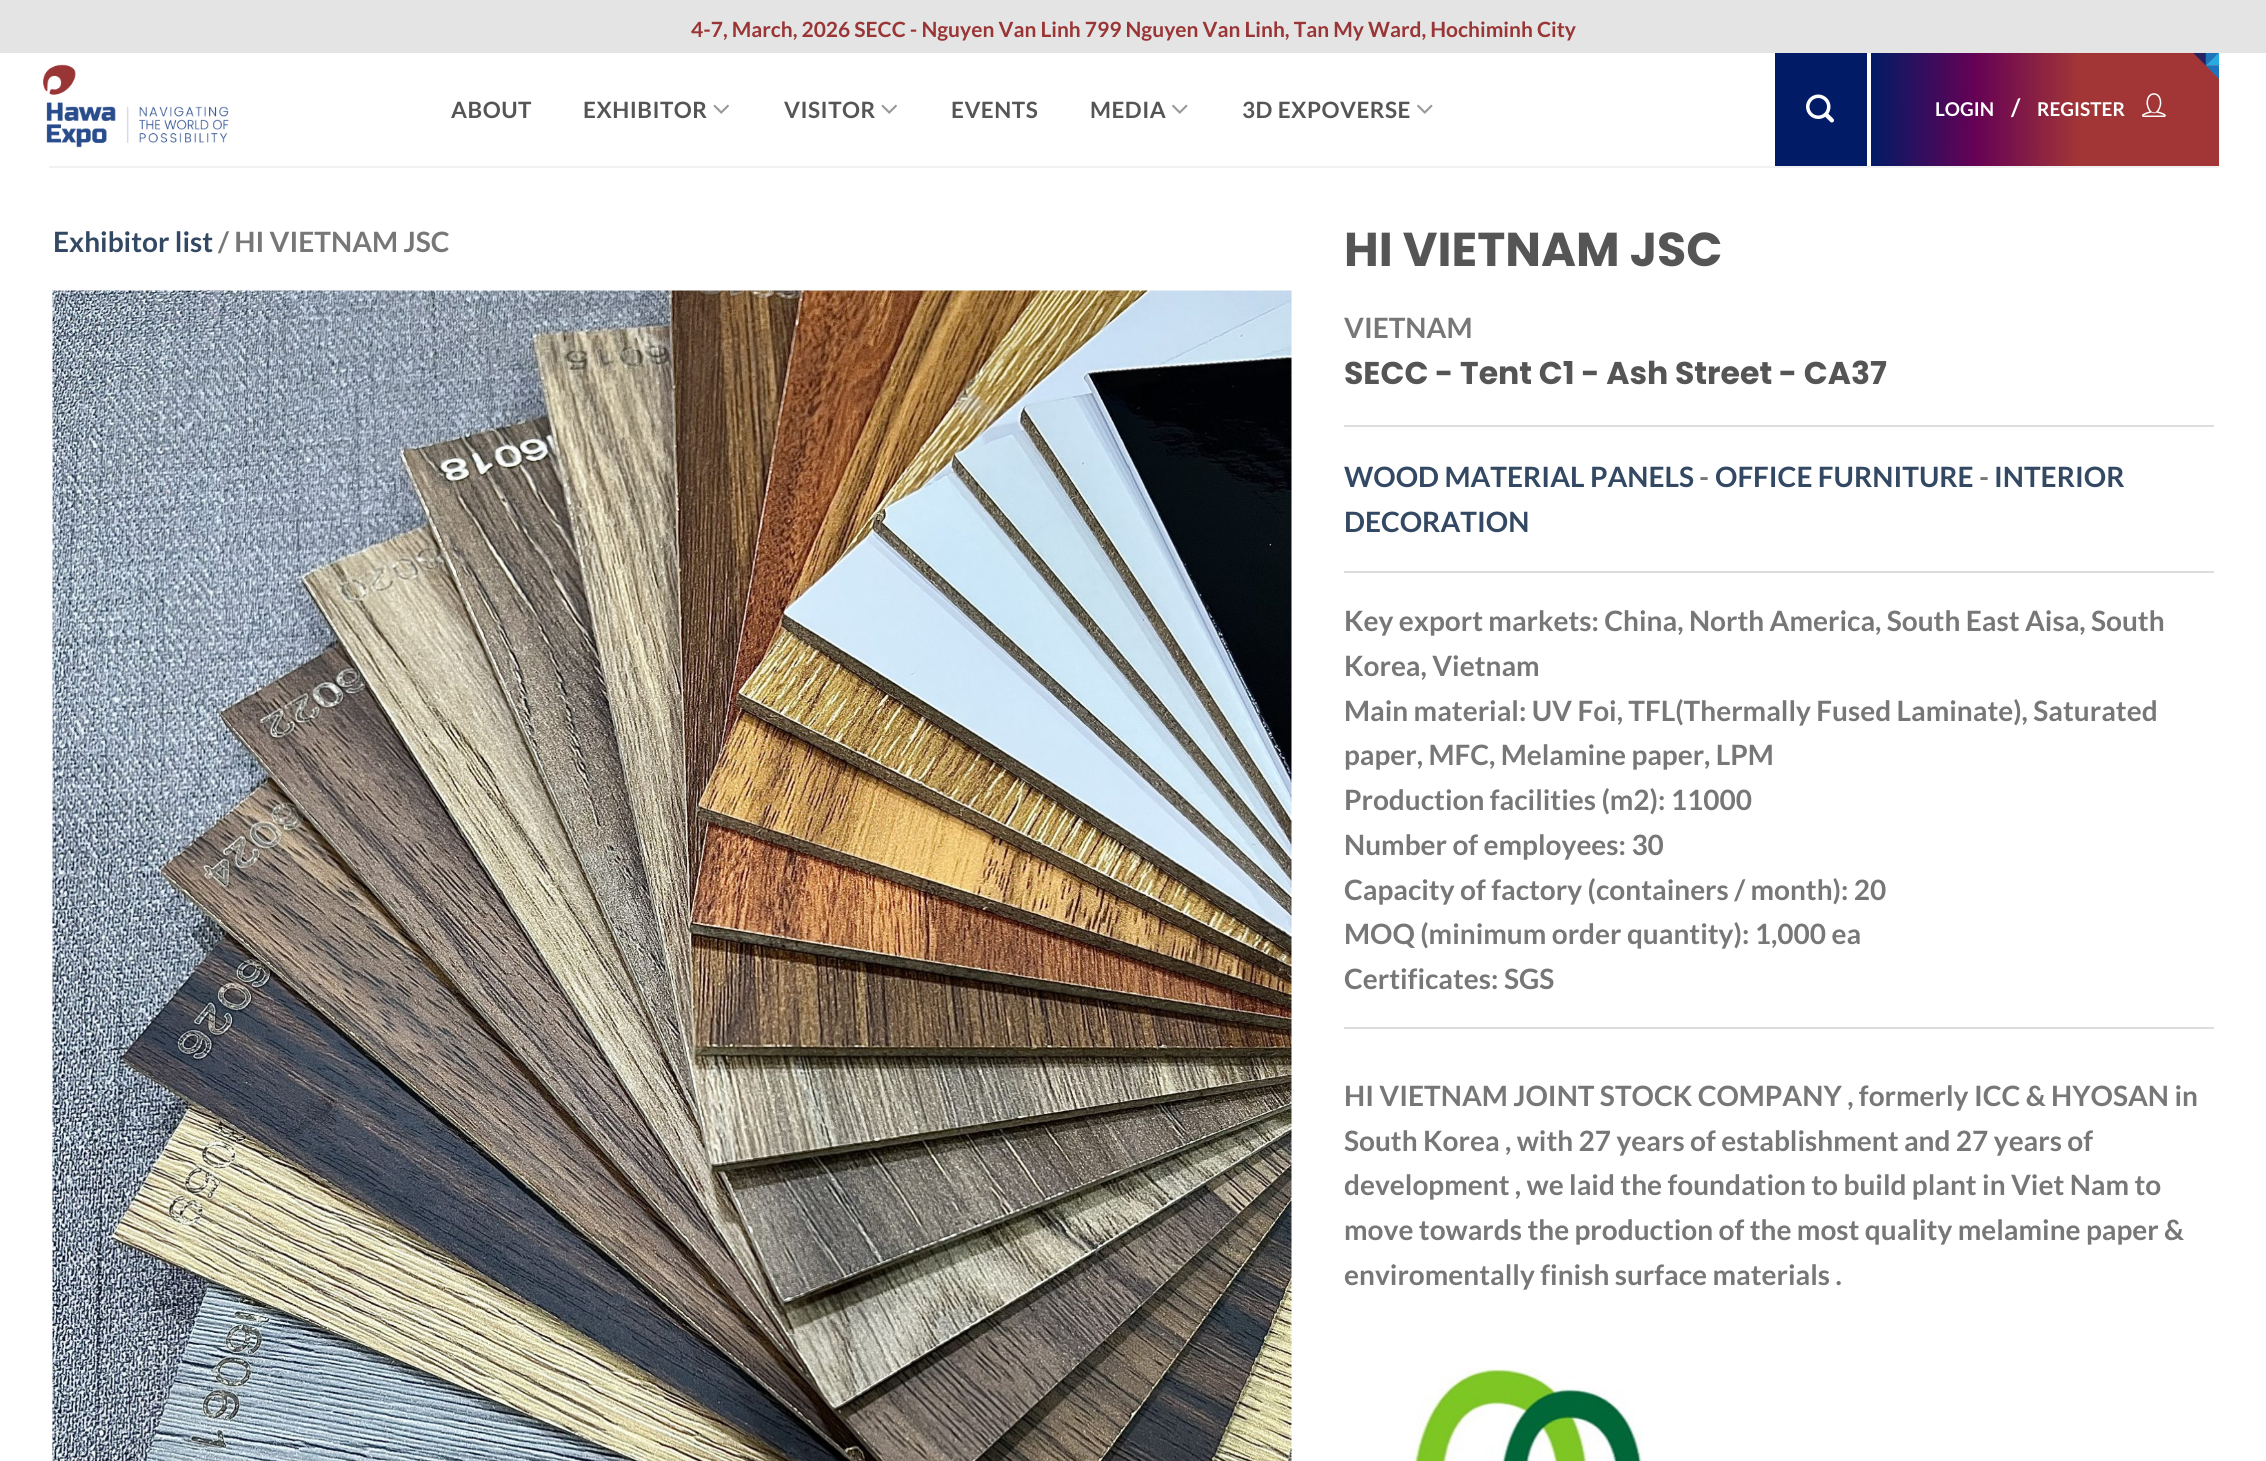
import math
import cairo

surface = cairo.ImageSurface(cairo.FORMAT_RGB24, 2266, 1461)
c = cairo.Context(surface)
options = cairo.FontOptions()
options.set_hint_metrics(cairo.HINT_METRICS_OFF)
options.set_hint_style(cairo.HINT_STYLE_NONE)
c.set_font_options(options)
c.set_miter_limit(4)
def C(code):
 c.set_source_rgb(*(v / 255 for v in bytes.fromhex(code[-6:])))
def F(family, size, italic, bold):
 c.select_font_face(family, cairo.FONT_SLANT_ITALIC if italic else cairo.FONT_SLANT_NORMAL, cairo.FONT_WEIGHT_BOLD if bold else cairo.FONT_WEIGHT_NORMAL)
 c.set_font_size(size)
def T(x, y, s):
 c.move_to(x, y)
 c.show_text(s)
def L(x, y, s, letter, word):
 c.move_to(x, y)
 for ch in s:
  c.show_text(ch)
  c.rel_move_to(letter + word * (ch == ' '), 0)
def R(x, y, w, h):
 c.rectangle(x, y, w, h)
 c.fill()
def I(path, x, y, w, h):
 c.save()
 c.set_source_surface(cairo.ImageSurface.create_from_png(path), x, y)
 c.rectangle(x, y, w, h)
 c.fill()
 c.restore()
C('ffffff')
c.paint()
C('e4e4e4')
R(0,0,2266,53)
F('Lato',21,0,1)
C('9a3536')
T(691,37,'4-7, March, 2026 SECC - Nguyen Van Linh 799 Nguyen Van Linh, Tan My Ward, Hochiminh City')
I('1.png',43,64,186,84)
F('Lato',22.5,0,1)
C('555555')
L(451,118,'ABOUT',.5,0)
L(583,118,'EXHIBITOR',.5,0)
I('2.png',713,104,16,10)
L(784,118,'VISITOR',.5,0)
I('2.png',881,104,16,10)
L(951,118,'EVENTS',.5,0)
L(1090,118,'MEDIA',.5,0)
I('3.png',1172,104,16,10)
L(1242,118,'3D EXPOVERSE',.5,0)
I('3.png',1417,104,16,10)
C('011b66')
R(1775,53,92,113)
I('4.png',1806,94,28,29)
gradient = cairo.LinearGradient(1871,109,2219,108)
gradient.add_color_stop_rgba(0,0.004,0.106,0.4,1)
gradient.add_color_stop_rgba(.3,0.4,0.004,0.333,1)
gradient.add_color_stop_rgba(.6,0.635,0.212,0.212,1)
c.set_source(gradient)
R(1871,53,348,113)
I('5.png',2193,53,26,26)
F('Lato',19,0,1)
C('ffffff')
T(1935,116,'LOGIN')
F('Lato',24,0,1)
T(2011,116,'/')
F('Lato',19,0,1)
T(2037,116,'REGISTER')
I('6.png',2142,93,24,24)
C('f1f1f1')
R(49,166,2170,2)
F('Lato',28,0,1)
C('334862')
T(53,252,'Exhibitor list')
C('777777')
T(218,252,'/ HI VIETNAM JSC')
I('7.png',52,290,1240,1171)
F('Poppins',47.5,0,1)
C('555555')
T(1344,266,'HI VIETNAM JSC')
F('Lato',28,0,1)
C('777777')
T(1344,338,'VIETNAM')
F('Poppins',31.5,0,1)
C('555555')
T(1344,384,'SECC - Tent C1 - Ash Street - CA37')
C('dddddd')
R(1344,425,870,2)
F('Lato',28,0,1)
C('334862')
T(1344,487,'WOOD MATERIAL PANELS')
C('777777')
T(1699,487,'-')
C('334862')
T(1715,487,'OFFICE FURNITURE')
C('777777')
T(1979,487,'-')
C('334862')
T(1994,487,'INTERIOR')
T(1344,532,'DECORATION')
C('dddddd')
R(1344,571,870,2)
R(1344,1027,870,2)
C('777777')
T(1344,631,'Key export markets: China, North America, South East Aisa, South')
T(1344,676,'Korea, Vietnam')
T(1344,721,'Main material: UV Foi, TFL(Thermally Fused Laminate), Saturated')
T(1344,765,'paper, MFC, Melamine paper, LPM')
T(1344,810,'Production facilities (m2): 11000')
T(1344,855,'Number of employees: 30')
T(1344,900,'Capacity of factory (containers / month): 20')
T(1344,944,'MOQ (minimum order quantity): 1,000 ea')
T(1344,989,'Certificates: SGS')
T(1344,1106,'HI VIETNAM JOINT STOCK COMPANY , formerly ICC & HYOSAN in')
T(1344,1151,'South Korea , with 27 years of establishment and 27 years of')
T(1344,1195,'development , we laid the foundation to build plant in Viet Nam to')
T(1344,1240,'move towards the production of the most quality melamine paper &')
T(1344,1285,'enviromentally finish surface materials .')
I('8.png',1412,1367,231,94)
surface.write_to_png('o.png')
